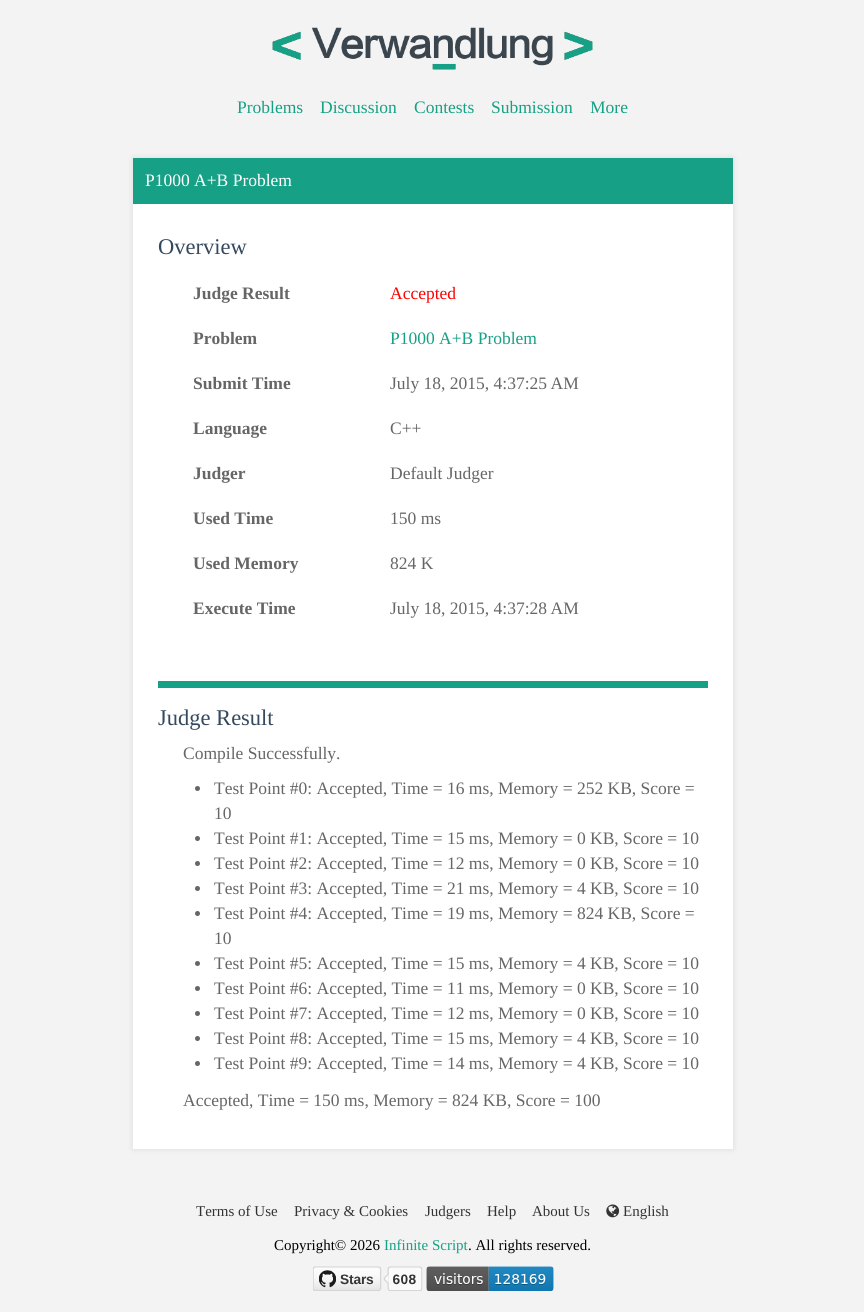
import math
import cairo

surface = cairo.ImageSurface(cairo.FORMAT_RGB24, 864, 1312)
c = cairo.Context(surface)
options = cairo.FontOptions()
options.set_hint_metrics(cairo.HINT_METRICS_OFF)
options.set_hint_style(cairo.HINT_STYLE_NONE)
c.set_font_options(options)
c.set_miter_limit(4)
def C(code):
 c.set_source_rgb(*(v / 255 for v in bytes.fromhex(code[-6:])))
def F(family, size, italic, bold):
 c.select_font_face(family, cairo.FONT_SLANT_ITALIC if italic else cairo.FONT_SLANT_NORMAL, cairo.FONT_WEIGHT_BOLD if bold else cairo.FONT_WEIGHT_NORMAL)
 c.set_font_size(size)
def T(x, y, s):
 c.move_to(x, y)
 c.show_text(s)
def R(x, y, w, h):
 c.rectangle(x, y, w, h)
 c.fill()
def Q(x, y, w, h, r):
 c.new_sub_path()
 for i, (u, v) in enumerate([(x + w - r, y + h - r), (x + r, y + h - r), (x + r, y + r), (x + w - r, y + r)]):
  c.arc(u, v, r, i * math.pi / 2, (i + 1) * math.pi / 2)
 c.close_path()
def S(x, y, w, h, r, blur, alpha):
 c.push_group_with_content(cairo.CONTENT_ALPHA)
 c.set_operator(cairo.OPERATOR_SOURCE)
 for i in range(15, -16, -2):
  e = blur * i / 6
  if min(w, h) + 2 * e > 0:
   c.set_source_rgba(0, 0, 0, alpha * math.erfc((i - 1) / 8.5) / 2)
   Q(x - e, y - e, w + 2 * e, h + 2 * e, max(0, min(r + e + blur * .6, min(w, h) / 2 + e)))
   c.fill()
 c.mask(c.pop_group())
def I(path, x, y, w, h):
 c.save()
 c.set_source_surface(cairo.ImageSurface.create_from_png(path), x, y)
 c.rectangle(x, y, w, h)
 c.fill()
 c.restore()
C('f3f3f3')
c.paint()
I('1.png',272,27,321,43)
F('Liberation Serif',17.5,0,0)
C('16a085')
T(237,113,'Problems')
T(320,113,'Discussion')
T(414,113,'Contests')
T(491,113,'Submission')
T(590,113,'More')
C('000000')
S(133,158,600,991,0,3,.1)
C('16a085')
R(133,158,600,46)
C('ffffff')
T(145,186,'P1000 A+B Problem')
R(133,204,600,945)
F('Liberation Serif',22.5,0,0)
C('34495e')
T(158,254,'Overview')
F('Liberation Serif',17.5,0,1)
C('666666')
T(193,299,'Judge Result')
F('Liberation Serif',17.5,0,0)
C('ff0000')
T(390,299,'Accepted')
F('Liberation Serif',17.5,0,1)
C('666666')
T(193,344,'Problem')
F('Liberation Serif',17.5,0,0)
C('16a085')
T(390,344,'P1000 A+B Problem')
F('Liberation Serif',17.5,0,1)
C('666666')
T(193,389,'Submit Time')
F('Liberation Serif',17.5,0,0)
T(390,389,'July 18, 2015, 4:37:25 AM')
F('Liberation Serif',17.5,0,1)
T(193,434,'Language')
F('Liberation Serif',17.5,0,0)
T(390,434,'C++')
F('Liberation Serif',17.5,0,1)
T(193,479,'Judger')
F('Liberation Serif',17.5,0,0)
T(390,479,'Default Judger')
F('Liberation Serif',17.5,0,1)
T(193,524,'Used Time')
F('Liberation Serif',17.5,0,0)
T(390,524,'150 ms')
F('Liberation Serif',17.5,0,1)
T(193,569,'Used Memory')
F('Liberation Serif',17.5,0,0)
T(390,569,'824 K')
F('Liberation Serif',17.5,0,1)
T(193,614,'Execute Time')
F('Liberation Serif',17.5,0,0)
T(390,614,'July 18, 2015, 4:37:28 AM')
C('16a085')
R(158,681,550,7)
F('Liberation Serif',22.5,0,0)
C('34495e')
T(158,725,'Judge Result')
F('Liberation Serif',17.5,0,0)
C('666666')
T(183,759,'Compile Successfully.')
c.new_path()
c.arc(197.5,788.5,2.5,0,2 * math.pi)
c.fill()
T(214,794,'Test Point #0: Accepted, Time = 16 ms, Memory = 252 KB, Score =')
T(214,819,'10')
c.new_path()
c.arc(197.5,838.5,2.5,0,2 * math.pi)
c.fill()
T(214,844,'Test Point #1: Accepted, Time = 15 ms, Memory = 0 KB, Score = 10')
c.new_path()
c.arc(197.5,863.5,2.5,0,2 * math.pi)
c.fill()
T(214,869,'Test Point #2: Accepted, Time = 12 ms, Memory = 0 KB, Score = 10')
c.new_path()
c.arc(197.5,888.5,2.5,0,2 * math.pi)
c.fill()
T(214,894,'Test Point #3: Accepted, Time = 21 ms, Memory = 4 KB, Score = 10')
c.new_path()
c.arc(197.5,913.5,2.5,0,2 * math.pi)
c.fill()
T(214,919,'Test Point #4: Accepted, Time = 19 ms, Memory = 824 KB, Score =')
T(214,944,'10')
c.new_path()
c.arc(197.5,963.5,2.5,0,2 * math.pi)
c.fill()
T(214,969,'Test Point #5: Accepted, Time = 15 ms, Memory = 4 KB, Score = 10')
c.new_path()
c.arc(197.5,988.5,2.5,0,2 * math.pi)
c.fill()
T(214,994,'Test Point #6: Accepted, Time = 11 ms, Memory = 0 KB, Score = 10')
c.new_path()
c.arc(197.5,1013.5,2.5,0,2 * math.pi)
c.fill()
T(214,1019,'Test Point #7: Accepted, Time = 12 ms, Memory = 0 KB, Score = 10')
c.new_path()
c.arc(197.5,1038.5,2.5,0,2 * math.pi)
c.fill()
T(214,1044,'Test Point #8: Accepted, Time = 15 ms, Memory = 4 KB, Score = 10')
c.new_path()
c.arc(197.5,1063.5,2.5,0,2 * math.pi)
c.fill()
T(214,1069,'Test Point #9: Accepted, Time = 14 ms, Memory = 4 KB, Score = 10')
T(183,1106,'Accepted, Time = 150 ms, Memory = 824 KB, Score = 100')
F('Liberation Serif',15,0,0)
C('333333')
T(196,1216,'Terms of Use')
T(294,1216,'Privacy & Cookies')
T(425,1216,'Judgers')
T(487,1216,'Help')
T(532,1216,'About Us')
I('2.png',606,1204,14,14)
T(623,1216,'English')
C('000000')
T(274,1250,'Copyright© 2026')
C('16a085')
T(384,1250,'Infinite Script')
C('000000')
T(468,1250,'. All rights reserved.')
I('3.png',313,1266,110,25)
I('4.png',426,1266,128,25)
surface.write_to_png('o.png')
